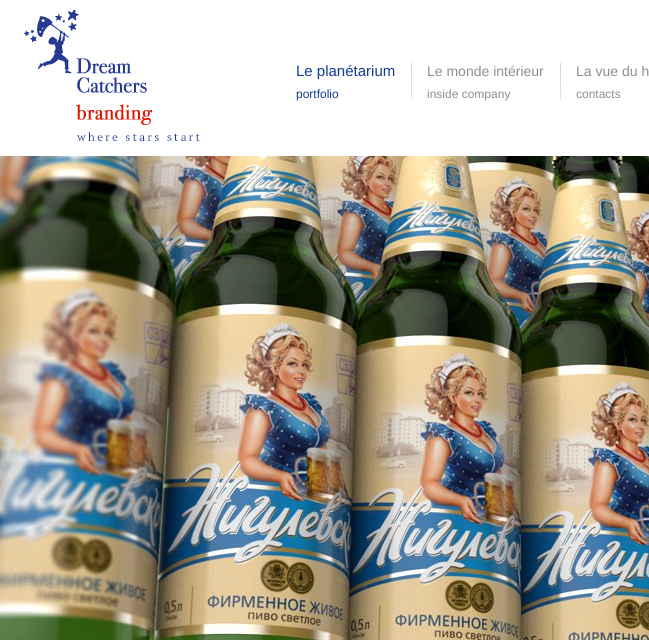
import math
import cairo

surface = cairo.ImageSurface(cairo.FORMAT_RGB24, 649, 640)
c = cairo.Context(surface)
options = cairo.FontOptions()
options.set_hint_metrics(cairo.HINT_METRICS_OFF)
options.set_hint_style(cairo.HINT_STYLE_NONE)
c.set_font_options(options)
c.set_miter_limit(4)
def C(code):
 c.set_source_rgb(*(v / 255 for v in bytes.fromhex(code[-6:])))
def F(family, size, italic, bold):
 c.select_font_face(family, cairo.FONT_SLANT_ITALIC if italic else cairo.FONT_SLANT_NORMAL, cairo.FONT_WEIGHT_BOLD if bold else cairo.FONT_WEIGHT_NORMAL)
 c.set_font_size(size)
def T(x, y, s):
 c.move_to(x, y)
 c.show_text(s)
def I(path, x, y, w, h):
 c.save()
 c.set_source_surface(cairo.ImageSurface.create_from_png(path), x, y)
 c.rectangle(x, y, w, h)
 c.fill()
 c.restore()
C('ffffff')
c.paint()
I('1.png',23,9,177,132)
F('Liberation Sans',15,0,0)
C('113c95')
T(296,76,'Le planétarium')
F('Liberation Sans',12,0,0)
T(296,98,'portfolio')
I('2.png',411,63,1,36)
F('Liberation Sans',14,0,0)
C('8f8f8f')
T(427,76,'Le monde intérieur')
F('Liberation Sans',12,0,0)
T(427,98,'inside company')
I('2.png',560,63,1,36)
F('Liberation Sans',14,0,0)
T(576,76,'La vue du h')
F('Liberation Sans',12,0,0)
T(576,98,'contacts')
I('3.png',0,156,649,484)
surface.write_to_png('o.png')
